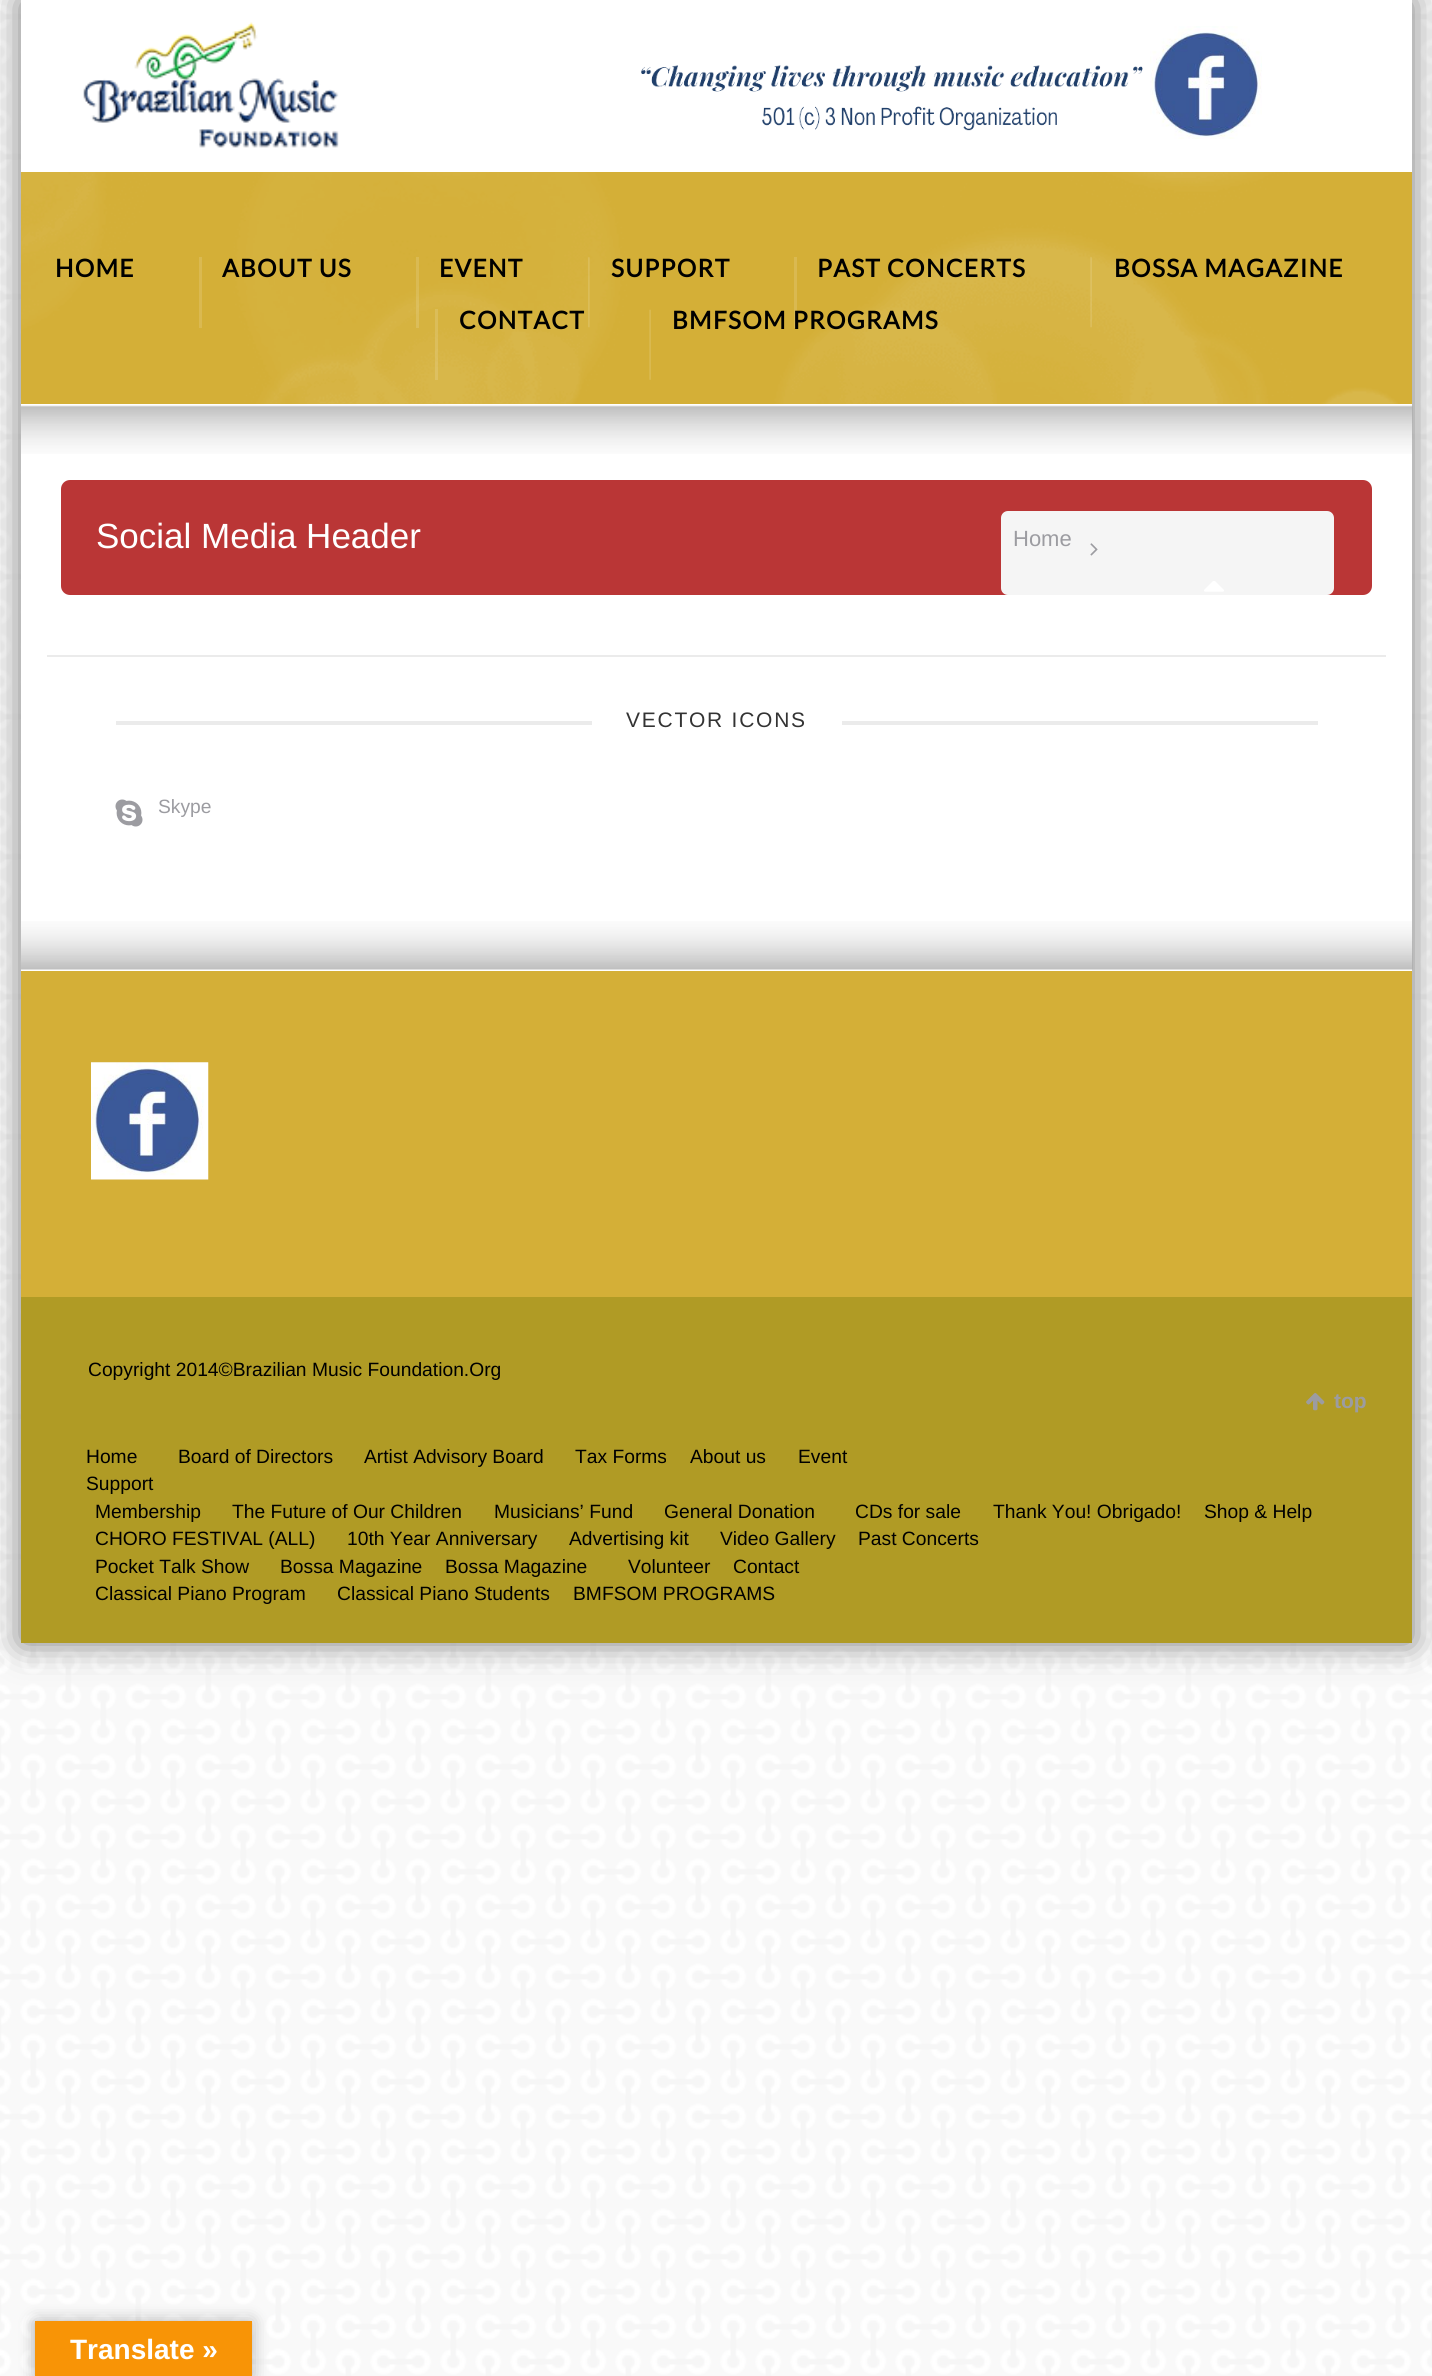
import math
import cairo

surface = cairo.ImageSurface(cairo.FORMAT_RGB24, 1432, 2376)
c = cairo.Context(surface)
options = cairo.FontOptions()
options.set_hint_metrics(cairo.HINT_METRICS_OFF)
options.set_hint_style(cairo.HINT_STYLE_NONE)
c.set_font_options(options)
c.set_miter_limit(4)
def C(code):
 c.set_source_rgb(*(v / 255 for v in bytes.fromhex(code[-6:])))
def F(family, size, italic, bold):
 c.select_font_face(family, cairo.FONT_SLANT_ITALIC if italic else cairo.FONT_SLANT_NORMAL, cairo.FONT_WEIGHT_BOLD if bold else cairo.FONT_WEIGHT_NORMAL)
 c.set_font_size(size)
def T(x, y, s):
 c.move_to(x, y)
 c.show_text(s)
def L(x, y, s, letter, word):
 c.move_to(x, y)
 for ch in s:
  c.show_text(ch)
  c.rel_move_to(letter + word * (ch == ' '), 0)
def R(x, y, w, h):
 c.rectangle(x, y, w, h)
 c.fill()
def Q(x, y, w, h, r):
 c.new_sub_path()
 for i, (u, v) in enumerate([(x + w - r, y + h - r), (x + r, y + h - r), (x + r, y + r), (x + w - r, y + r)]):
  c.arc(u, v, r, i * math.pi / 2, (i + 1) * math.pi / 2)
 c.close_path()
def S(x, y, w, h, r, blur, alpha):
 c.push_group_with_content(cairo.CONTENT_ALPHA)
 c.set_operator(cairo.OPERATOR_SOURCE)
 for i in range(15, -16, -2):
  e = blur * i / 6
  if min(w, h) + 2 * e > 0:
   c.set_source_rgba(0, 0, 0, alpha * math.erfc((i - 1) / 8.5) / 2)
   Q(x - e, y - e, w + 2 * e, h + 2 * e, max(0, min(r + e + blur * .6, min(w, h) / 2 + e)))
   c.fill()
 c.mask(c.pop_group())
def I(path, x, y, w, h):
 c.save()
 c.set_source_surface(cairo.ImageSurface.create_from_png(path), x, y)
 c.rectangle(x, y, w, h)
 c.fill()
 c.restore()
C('ffffff')
c.paint()
I('1.png',0,0,1432,2376)
C('000000')
S(21,0,1391,1643,0,17.5,.5)
C('ffffff')
R(21,0,1391,172)
I('2.png',83,22,256,126)
I('3.png',641,65,502,66)
I('4.png',1150,26,112,113)
C('d4af37')
R(21,172,1391,232)
I('5.png',21,172,1377,232)
F('Lato',24.5,0,1)
C('000000')
L(55,277,'HOME',1.25,0)
C('dab951')
R(199,257,3,71)
C('000000')
L(222,277,'ABOUT US',1.25,0)
c.set_source_rgba(1,1,1,0.13)
R(416,257,3,71)
C('000000')
L(439,277,'EVENT',1.25,0)
I('6.png',588,257,2,71)
L(611,277,'SUPPORT',1.25,0)
C('dab951')
R(794,257,3,71)
C('000000')
L(817,277,'PAST CONCERTS',1.25,0)
I('7.png',1090,257,2,71)
L(1114,277,'BOSSA MAGAZINE',1.25,0)
c.set_source_rgba(1,1,1,0.13)
R(435,309,3,71)
C('000000')
L(459,329,'CONTACT',1.25,0)
I('8.png',649,309,2,71)
L(672,329,'BMFSOM PROGRAMS',1.25,0)
C('ffffff')
R(21,404,1391,567)
I('9.png',21,405,1392,49)
C('ba3636')
Q(61,480,1311,115,9)
c.fill()
F('Liberation Sans',35,0,0)
C('ffffff')
T(96,548,'Social Media Header')
C('f5f5f5')
Q(1001,511,333,84,7)
c.fill()
F('Liberation Sans',22,0,0)
C('9c9ca1')
T(1013,546,'Home')
I('10.png',1090,543,8,13)
I('11.png',1204,581,20,11)
C('ebebeb')
R(47,655,1339,2)
R(116,721,1202,4)
C('ffffff')
R(592,721,250,4)
F('Liberation Sans',21,0,0)
C('333333')
L(626,727,'VECTOR ICONS',1.75,0)
I('12.png',115,799,28,28)
F('Liberation Sans',19.25,0,0)
C('9c9ca1')
T(158,813,'Skype')
I('13.png',21,921,1392,49)
C('d4af37')
R(21,971,1391,326)
I('14.png',91,1062,118,118)
C('b09b25')
R(21,1297,1391,346)
C('000000')
T(88,1376,'Copyright 2014©Brazilian Music Foundation.Org')
I('15.png',1306,1393,19,18)
F('Liberation Sans',21,0,1)
C('9c9ca1')
T(1334,1408,'top')
F('Liberation Sans',19.25,0,0)
C('000000')
T(86,1463,'Home')
T(178,1463,'Board of Directors')
T(364,1463,'Artist Advisory Board')
T(575,1463,'Tax Forms')
T(690,1463,'About us')
T(798,1463,'Event')
T(86,1490,'Support')
T(95,1518,'Membership')
T(232,1518,'The Future of Our Children')
T(494,1518,'Musicians’ Fund')
T(664,1518,'General Donation')
T(855,1518,'CDs for sale')
T(993,1518,'Thank You! Obrigado!')
T(1204,1518,'Shop & Help')
T(95,1545,'CHORO FESTIVAL (ALL)')
T(347,1545,'10th Year Anniversary')
T(569,1545,'Advertising kit')
T(720,1545,'Video Gallery')
T(858,1545,'Past Concerts')
T(95,1573,'Pocket Talk Show')
T(280,1573,'Bossa Magazine')
T(445,1573,'Bossa Magazine')
T(628,1573,'Volunteer')
T(733,1573,'Contact')
T(95,1600,'Classical Piano Program')
T(337,1600,'Classical Piano Students')
T(573,1600,'BMFSOM PROGRAMS')
C('000000')
S(35,2321,217,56,0,8,.3)
C('f89406')
R(35,2321,217,55)
F('Liberation Sans',28,0,1)
C('ffffff')
T(70,2359,'Translate »')
surface.write_to_png('o.png')
